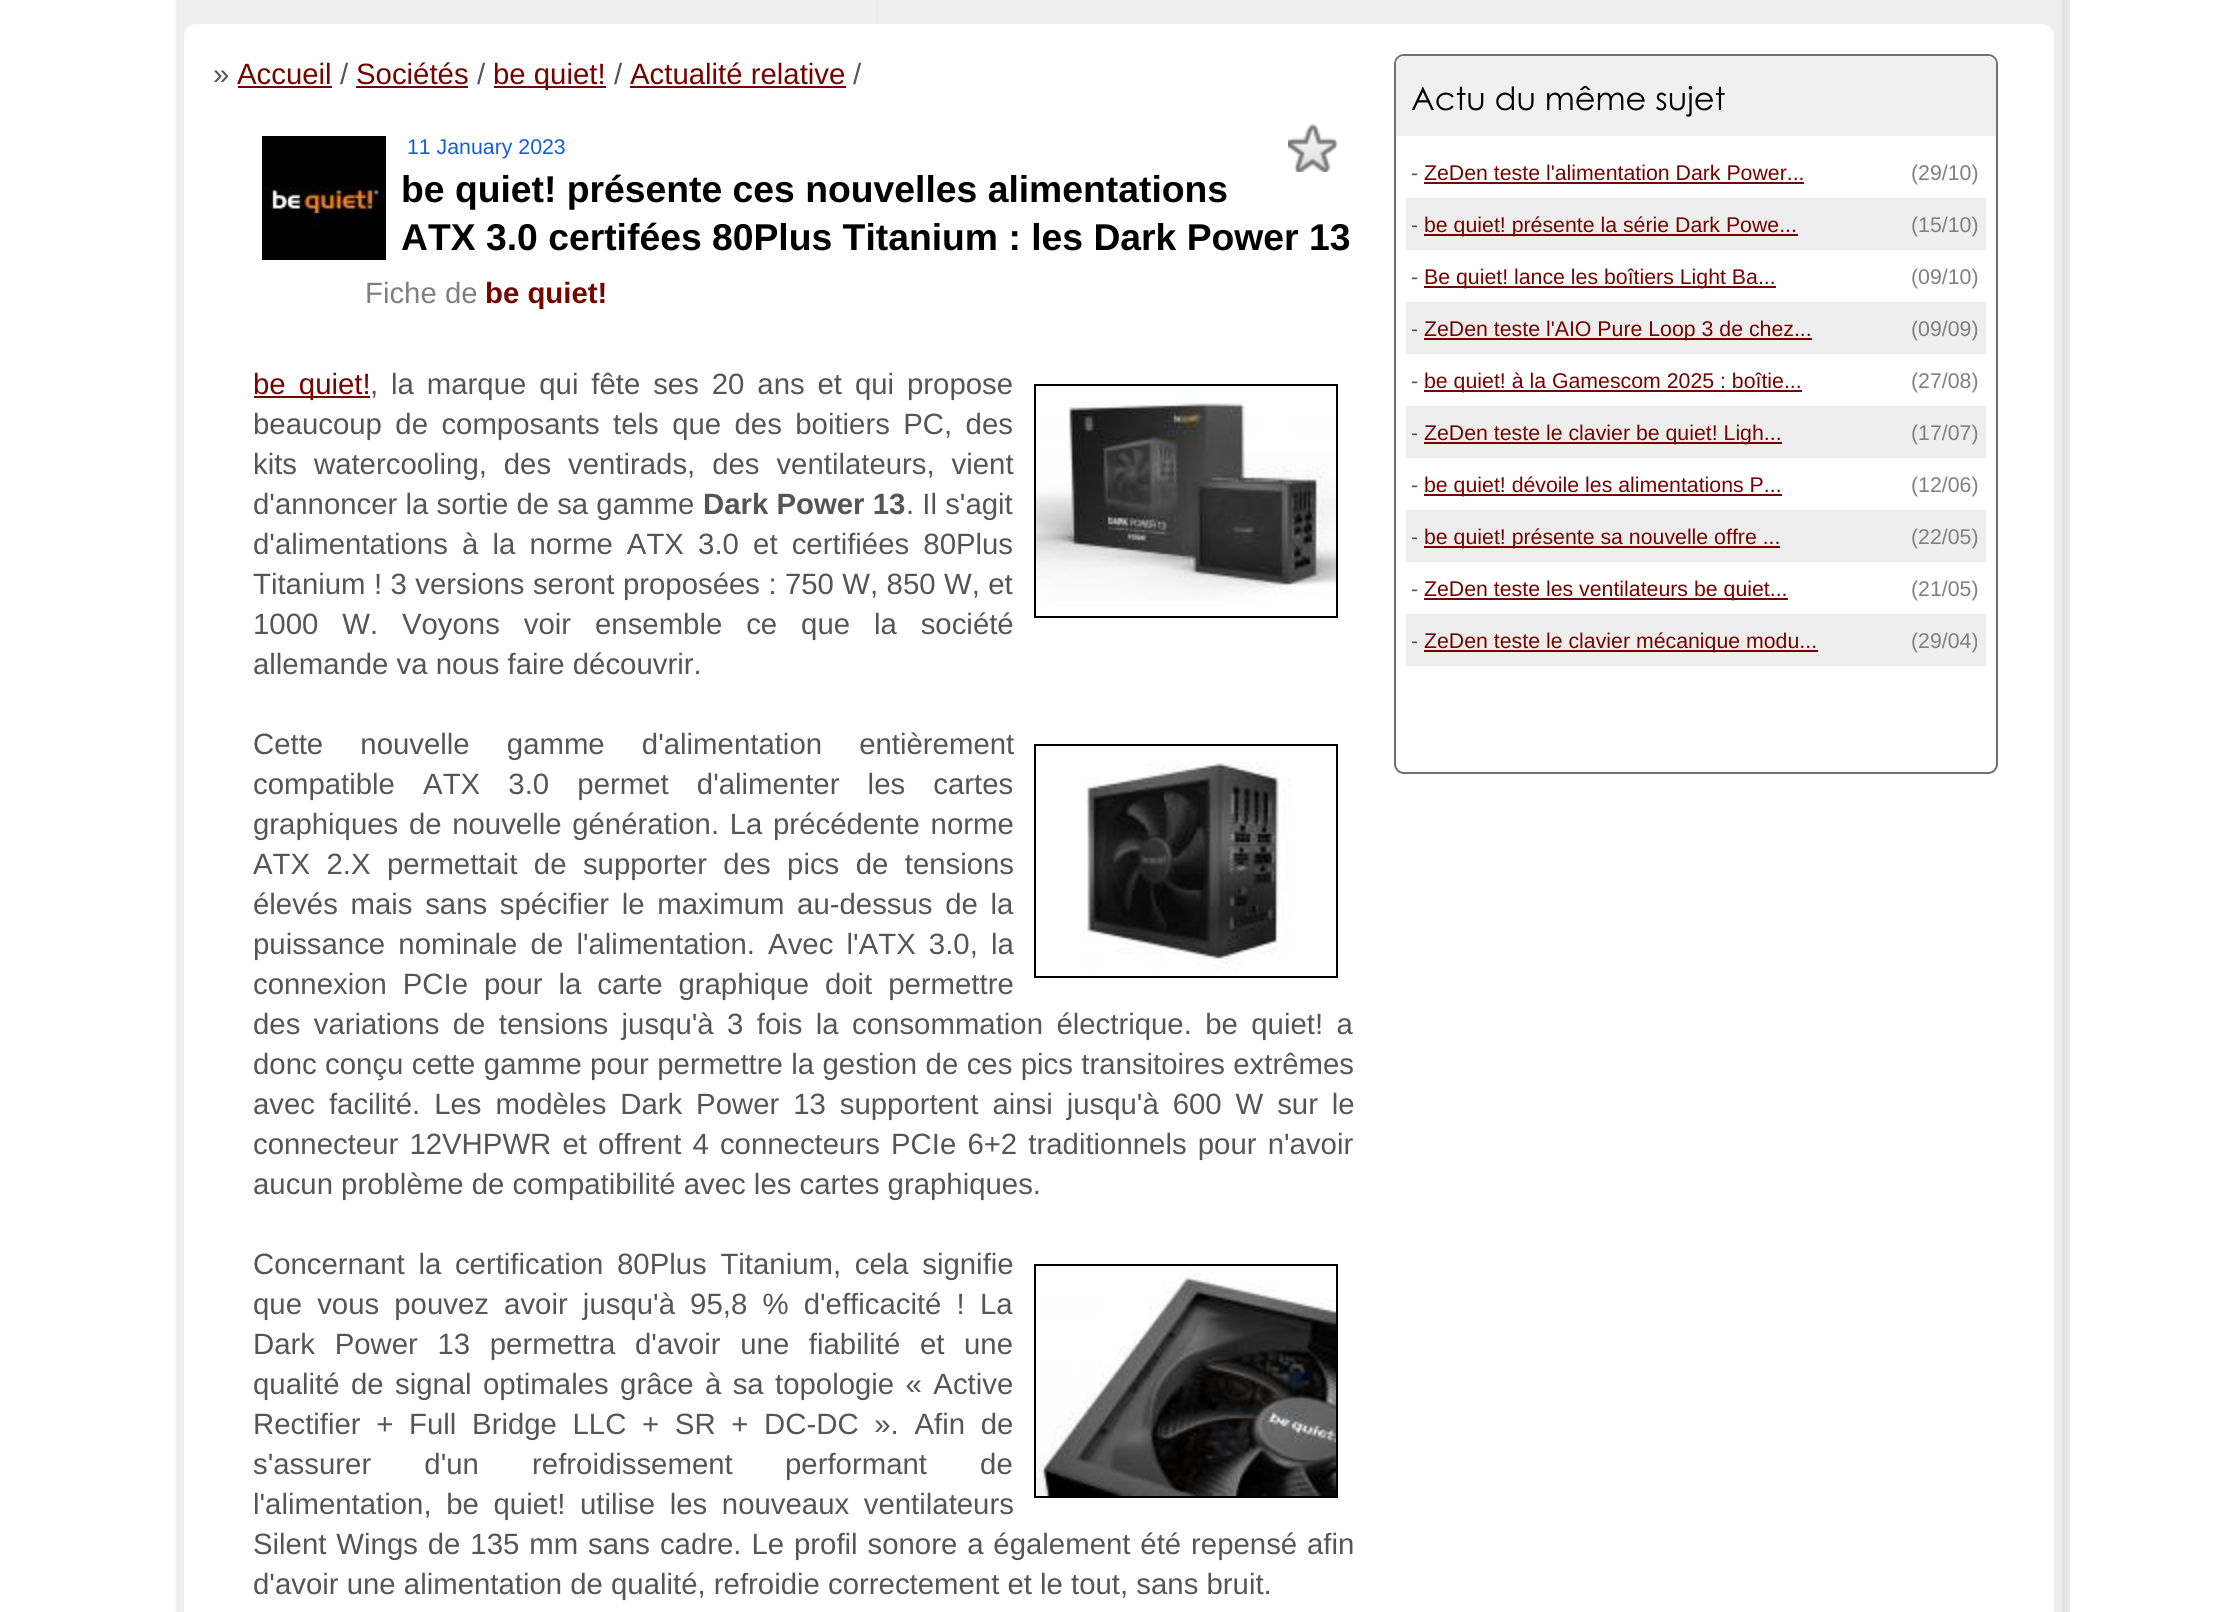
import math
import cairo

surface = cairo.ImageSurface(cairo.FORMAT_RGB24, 2234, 1612)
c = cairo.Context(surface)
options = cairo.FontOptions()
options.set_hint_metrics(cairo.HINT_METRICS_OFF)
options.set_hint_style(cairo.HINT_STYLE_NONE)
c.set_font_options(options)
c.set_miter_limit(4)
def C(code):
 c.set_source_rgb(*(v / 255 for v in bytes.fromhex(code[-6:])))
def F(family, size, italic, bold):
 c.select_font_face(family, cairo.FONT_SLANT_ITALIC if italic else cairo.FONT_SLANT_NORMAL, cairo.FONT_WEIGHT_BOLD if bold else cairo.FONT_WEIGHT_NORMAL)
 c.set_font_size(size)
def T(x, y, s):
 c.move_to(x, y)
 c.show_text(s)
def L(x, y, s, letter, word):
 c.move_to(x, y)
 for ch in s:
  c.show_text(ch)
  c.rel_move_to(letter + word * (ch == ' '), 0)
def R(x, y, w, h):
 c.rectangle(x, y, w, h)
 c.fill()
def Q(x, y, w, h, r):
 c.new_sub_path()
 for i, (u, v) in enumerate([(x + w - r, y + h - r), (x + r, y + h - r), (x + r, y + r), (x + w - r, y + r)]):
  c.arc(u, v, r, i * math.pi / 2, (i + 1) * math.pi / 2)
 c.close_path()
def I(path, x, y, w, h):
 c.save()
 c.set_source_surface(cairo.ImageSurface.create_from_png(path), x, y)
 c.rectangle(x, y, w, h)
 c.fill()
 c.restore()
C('ffffff')
c.paint()
I('1.png',175,0,1895,1612)
C('ffffff')
Q(184,24,1870,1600,12)
c.fill()
F('Liberation Sans',29.35,0,0)
C('555555')
T(213,84,'»')
C('730400')
T(237,84,'Accueil')
R(238,86,94,2)
C('555555')
T(340,84,'/')
C('730400')
T(356,84,'Sociétés')
R(356,86,112,2)
C('555555')
T(477,84,'/')
C('730400')
R(494,86,112,2)
T(493,84,'be quiet!')
C('555555')
T(614,84,'/')
C('730400')
T(630,84,'Actualité relative')
R(630,86,216,2)
C('555555')
T(853,84,'/')
c.rectangle(263,137,122,122)
C('000000')
c.stroke()
I('2.png',264,138,120,120)
F('Liberation Sans',21.3,0,0)
C('185ed0')
T(407,154,'11 January 2023')
I('3.png',1288,124,50,48)
F('Liberation Sans',37.3,0,1)
C('000000')
T(401,202,'be quiet! présente ces nouvelles alimentations')
T(401,250,'ATX 3.0 certifées 80Plus Titanium : les Dark Power 13')
F('Liberation Sans',29.35,0,0)
C('808080')
T(365,303,'Fiche de')
F('Liberation Sans',29.35,0,1)
C('730400')
T(485,303,'be quiet!')
R(254,396,116,2)
F('Liberation Sans',29.35,0,0)
L(253,394,'be quiet!',0,5)
C('555555')
L(370,394,', la marque qui fête ses 20 ans et qui propose',0,4.75)
c.rectangle(1035,385,302,232)
C('000000')
c.stroke()
I('4.png',1036,386,300,215)
C('555555')
L(253,434,'beaucoup de composants tels que des boitiers PC, des',0,5.25)
L(253,474,'kits watercooling, des ventirads, des ventilateurs, vient',0,8.75)
T(253,514,'d\'annoncer la sortie de sa gamme')
F('Liberation Sans',29.35,0,1)
T(703,514,'Dark Power 13')
F('Liberation Sans',29.35,0,0)
T(906,514,'. Il s\'agit')
L(253,554,'d\'alimentations à la norme ATX 3.0 et certifiées 80Plus',0,6)
L(253,594,'Titanium ! 3 versions seront proposées : 750 W, 850 W, et',0,.25)
L(253,634,'1000 W. Voyons voir ensemble ce que la société',0,15.75)
T(253,674,'allemande va nous faire découvrir.')
L(253,754,'Cette nouvelle gamme d\'alimentation entièrement',0,29)
c.rectangle(1035,745,302,232)
C('000000')
c.stroke()
I('5.png',1084,762,207,208)
C('555555')
L(253,794,'compatible ATX 3.0 permet d\'alimenter les cartes',0,20)
L(253,834,'graphiques de nouvelle génération. La précédente norme',0,2.5)
L(253,874,'ATX 2.X permettait de supporter des pics de tensions',0,8.25)
L(253,914,'élevés mais sans spécifier le maximum au-dessus de la',0,4.5)
L(253,954,'puissance nominale de l\'alimentation. Avec l\'ATX 3.0, la',0,5)
L(253,994,'connexion PCIe pour la carte graphique doit permettre',0,7.75)
L(253,1034,'des variations de tensions jusqu\'à 3 fois la consommation électrique. be quiet! a',0,5.25)
L(253,1074,'donc conçu cette gamme pour permettre la gestion de ces pics transitoires extrêmes',0,.25)
L(253,1114,'avec facilité. Les modèles Dark Power 13 supportent ainsi jusqu\'à 600 W sur le',0,5.75)
L(253,1154,'connecteur 12VHPWR et offrent 4 connecteurs PCIe 6+2 traditionnels pour n\'avoir',0,3)
T(253,1194,'aucun problème de compatibilité avec les cartes graphiques.')
L(253,1274,'Concernant la certification 80Plus Titanium, cela signifie',0,5.5)
c.rectangle(1035,1265,302,232)
C('000000')
c.stroke()
I('6.png',1036,1266,300,230)
C('555555')
L(253,1314,'que vous pouvez avoir jusqu\'à 95,8 % d\'efficacité ! La',0,7)
L(253,1354,'Dark Power 13 permettra d\'avoir une fiabilité et une',0,11.5)
L(253,1394,'qualité de signal optimales grâce à sa topologie « Active',0,3.25)
L(253,1434,'Rectifier + Full Bridge LLC + SR + DC-DC ». Afin de',0,7.5)
L(253,1474,'s\'assurer d\'un refroidissement',0,45)
L(785,1474,'performant de',0,45)
L(253,1514,'l\'alimentation, be quiet! utilise les nouveaux ventilateurs',0,6.5)
L(253,1554,'Silent Wings de 135 mm sans cadre. Le profil sonore a également été repensé afin',0,1.75)
T(253,1594,'d\'avoir une alimentation de qualité, refroidie correctement et le tout, sans bruit.')
Q(1395,55,602,718,9)
C('707070')
c.stroke()
C('f0f0f0')
c.new_path()
c.move_to(1404,56)
c.line_to(1988,56)
c.curve_to(1992.5,56,1996,59.5,1996,64)
c.line_to(1996,136)
c.line_to(1396,136)
c.line_to(1396,64)
c.curve_to(1396,59.5,1399.5,56,1404,56)
c.close_path()
c.fill()
F('Century Gothic',32,0,0)
C('000000')
T(1411,110,'Actu du même sujet')
F('Liberation Sans',21.3,0,0)
C('555555')
T(1411,180,'-')
C('730400')
T(1424,180,'ZeDen teste l\'alimentation Dark Power...')
R(1424,182,380,2)
C('808080')
T(1911,180,'(29/10)')
C('eeeeee')
R(1406,198,580,52)
C('555555')
T(1411,232,'-')
C('730400')
R(1424,234,374,2)
T(1424,232,'be quiet! présente la série Dark Powe...')
C('808080')
T(1911,232,'(15/10)')
C('555555')
T(1411,284,'-')
C('730400')
R(1424,286,352,2)
T(1424,284,'Be quiet! lance les boîtiers Light Ba...')
C('808080')
T(1911,284,'(09/10)')
C('eeeeee')
R(1406,302,580,52)
C('555555')
T(1411,336,'-')
C('730400')
R(1424,338,388,2)
T(1424,336,'ZeDen teste l\'AIO Pure Loop 3 de chez...')
C('808080')
T(1911,336,'(09/09)')
C('555555')
T(1411,388,'-')
C('730400')
R(1424,390,378,2)
T(1424,388,'be quiet! à la Gamescom 2025 : boîtie...')
C('808080')
T(1911,388,'(27/08)')
C('eeeeee')
R(1406,406,580,52)
C('555555')
T(1411,440,'-')
C('730400')
R(1424,442,358,2)
T(1424,440,'ZeDen teste le clavier be quiet! Ligh...')
C('808080')
T(1911,440,'(17/07)')
C('555555')
T(1411,492,'-')
C('730400')
R(1424,494,358,2)
T(1424,492,'be quiet! dévoile les alimentations P...')
C('808080')
T(1911,492,'(12/06)')
C('eeeeee')
R(1406,510,580,52)
C('555555')
T(1411,544,'-')
C('730400')
R(1424,546,356,2)
T(1424,544,'be quiet! présente sa nouvelle offre ...')
C('808080')
T(1911,544,'(22/05)')
C('555555')
T(1411,596,'-')
C('730400')
R(1424,598,364,2)
T(1424,596,'ZeDen teste les ventilateurs be quiet...')
C('808080')
T(1911,596,'(21/05)')
C('eeeeee')
R(1406,614,580,52)
C('555555')
T(1411,648,'-')
C('730400')
R(1424,650,394,2)
T(1424,648,'ZeDen teste le clavier mécanique modu...')
C('808080')
T(1911,648,'(29/04)')
surface.write_to_png('o.png')
